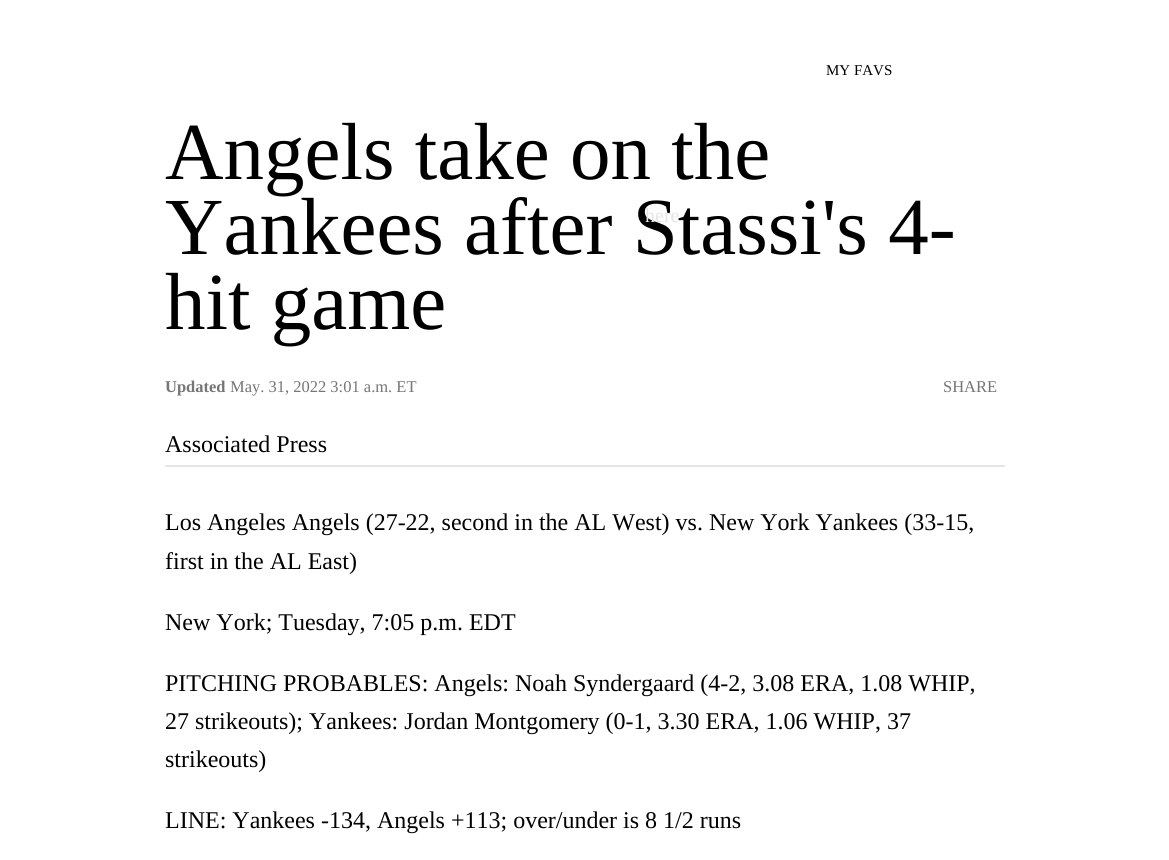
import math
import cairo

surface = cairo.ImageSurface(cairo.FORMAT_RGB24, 1169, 860)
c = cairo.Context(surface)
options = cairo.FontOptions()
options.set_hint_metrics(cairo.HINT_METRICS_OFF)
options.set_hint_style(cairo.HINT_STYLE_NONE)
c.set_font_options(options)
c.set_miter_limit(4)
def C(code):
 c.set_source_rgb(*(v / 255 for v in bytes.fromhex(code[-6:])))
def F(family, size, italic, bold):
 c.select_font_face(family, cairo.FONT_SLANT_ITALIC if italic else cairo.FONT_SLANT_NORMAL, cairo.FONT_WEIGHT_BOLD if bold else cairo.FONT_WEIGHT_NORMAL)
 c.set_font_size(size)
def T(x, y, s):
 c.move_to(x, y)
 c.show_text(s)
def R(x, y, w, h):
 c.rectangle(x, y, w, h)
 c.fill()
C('ffffff')
c.paint()
F('Liberation Serif',15,0,0)
C('000000')
T(826,75,'MY FAVS')
F('Liberation Serif',81,0,0)
T(165,254,'Yankees after Stassi\'s 4-')
F('Liberation Serif',20,0,0)
C('e5e5e5')
T(645,222,'here')
F('Liberation Serif',81,0,0)
C('000000')
T(165,179,'Angels take on the')
T(165,329,'hit game')
F('Liberation Serif',16.5,0,1)
C('757575')
T(165,392,'Updated')
F('Liberation Serif',16.5,0,0)
T(230,392,'May. 31, 2022 3:01 a.m. ET')
T(943,392,'SHARE')
C('e5e5e5')
R(165,465,840,2)
F('Liberation Serif',24,0,0)
C('000000')
T(165,452,'Associated Press')
T(165,530,'Los Angeles Angels (27-22, second in the AL West) vs. New York Yankees (33-15,')
T(165,569,'first in the AL East)')
T(165,630,'New York; Tuesday, 7:05 p.m. EDT')
T(165,691,'PITCHING PROBABLES: Angels: Noah Syndergaard (4-2, 3.08 ERA, 1.08 WHIP,')
T(165,729,'27 strikeouts); Yankees: Jordan Montgomery (0-1, 3.30 ERA, 1.06 WHIP, 37')
T(165,767,'strikeouts)')
T(165,828,'LINE: Yankees -134, Angels +113; over/under is 8 1/2 runs')
surface.write_to_png('o.png')
